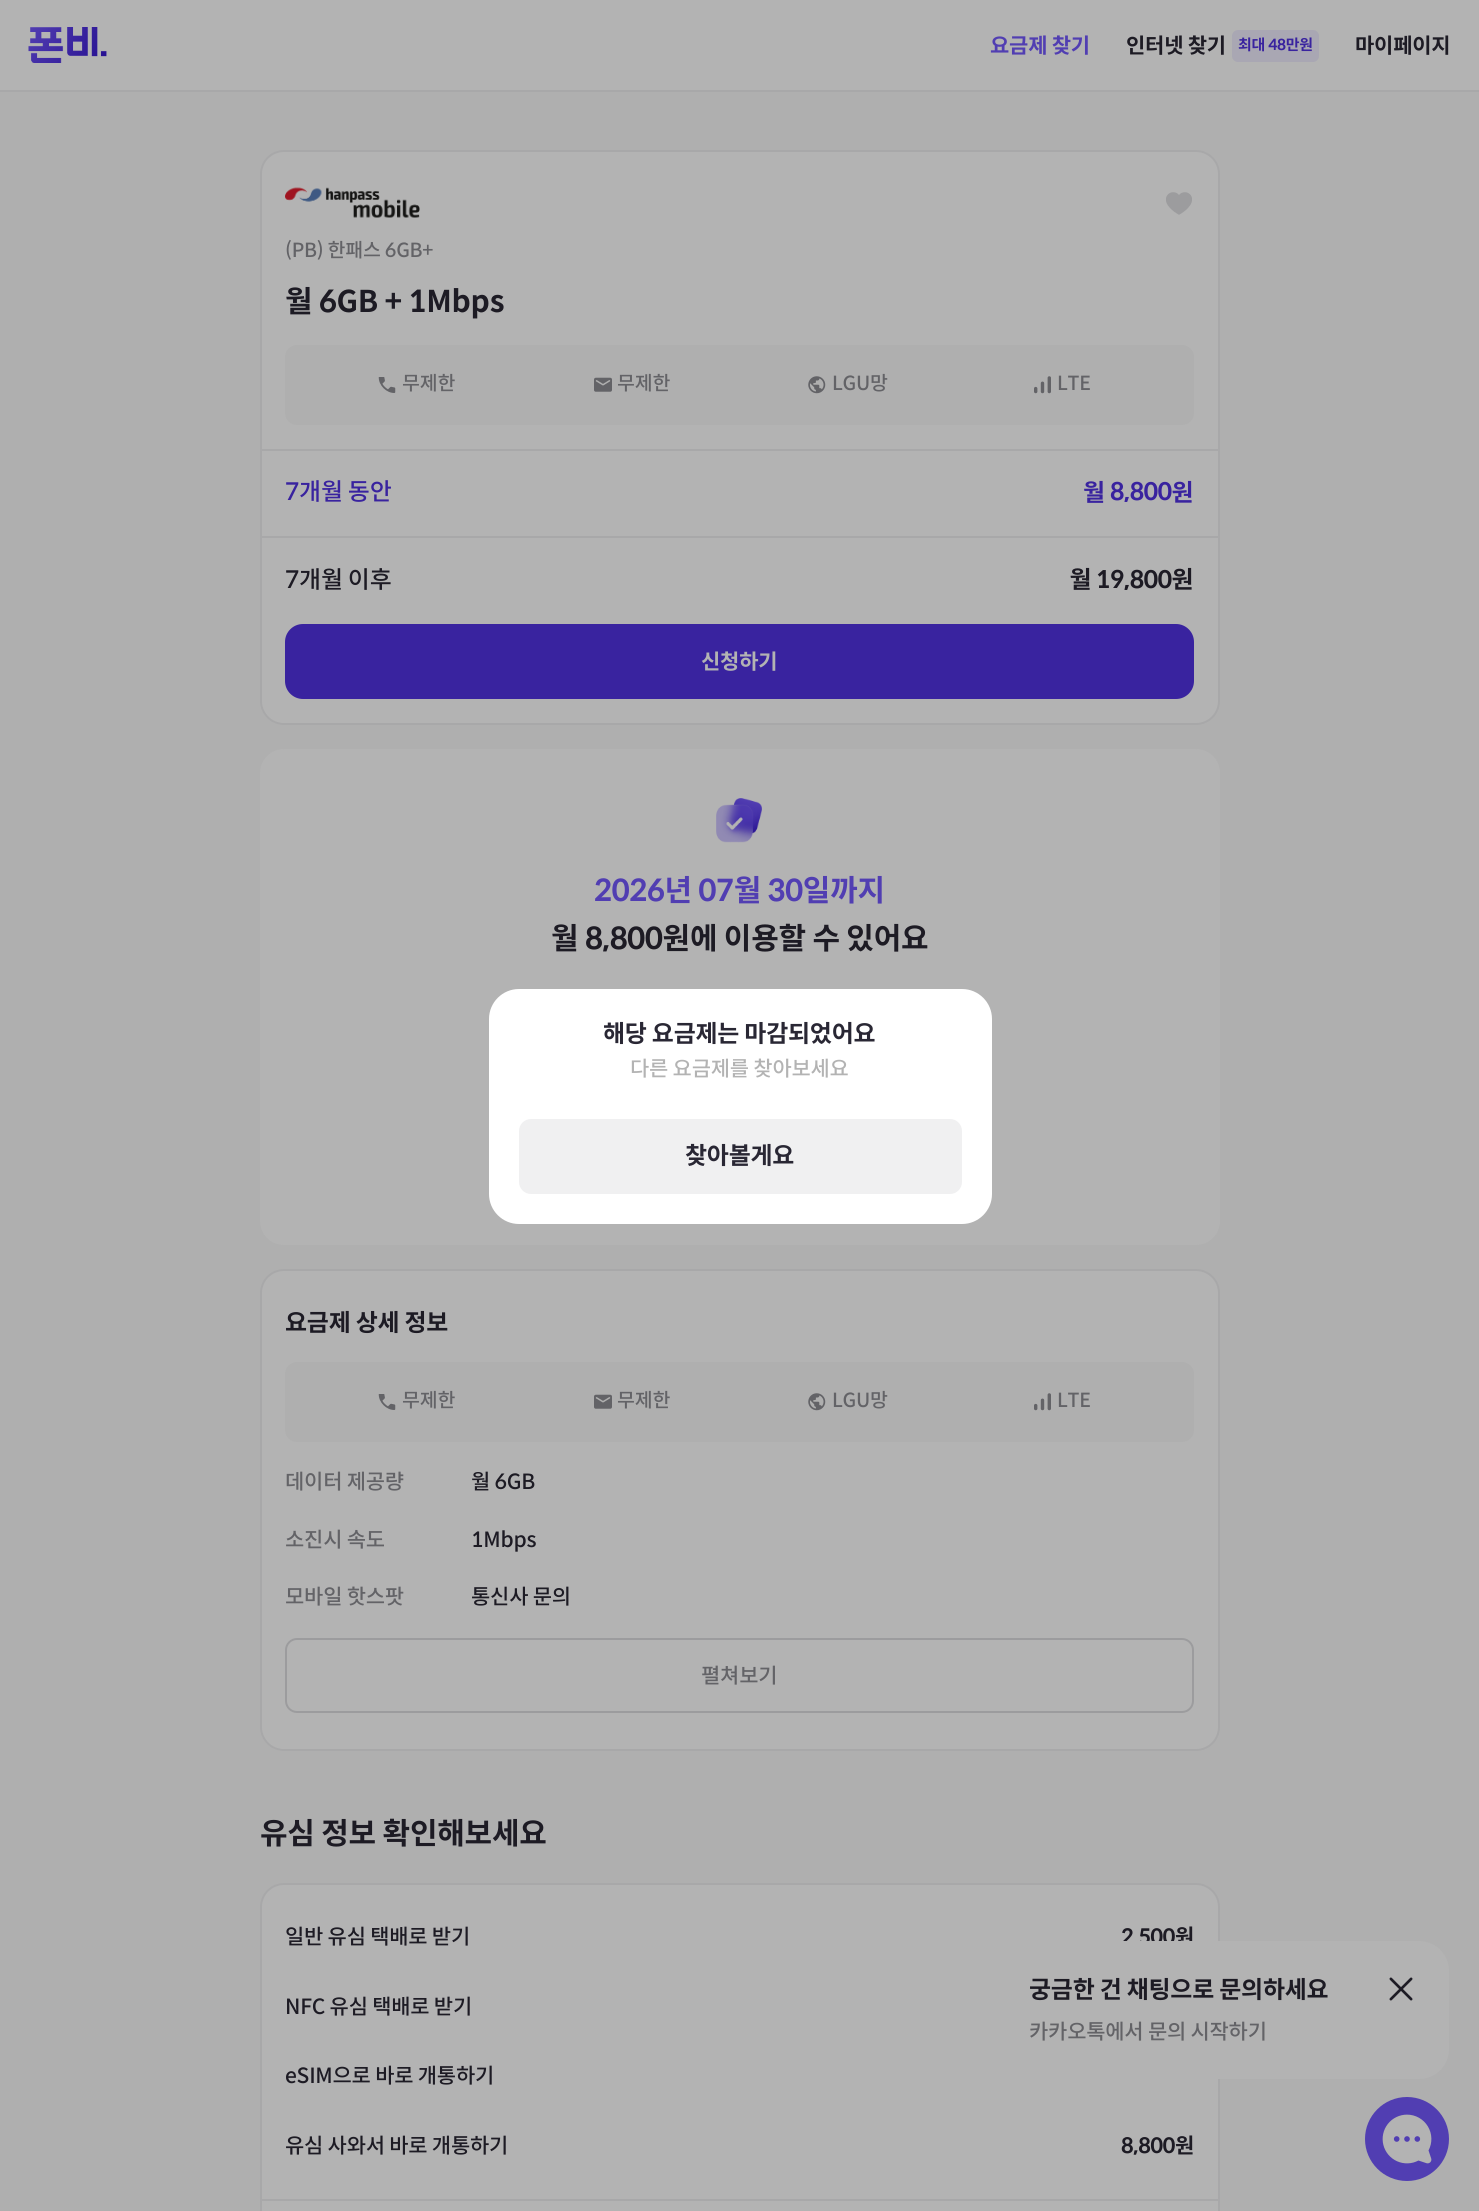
import math
import cairo

surface = cairo.ImageSurface(cairo.FORMAT_RGB24, 1479, 2211)
c = cairo.Context(surface)
options = cairo.FontOptions()
options.set_hint_metrics(cairo.HINT_METRICS_OFF)
options.set_hint_style(cairo.HINT_STYLE_NONE)
c.set_font_options(options)
c.set_miter_limit(4)
def C(code):
 c.set_source_rgb(*(v / 255 for v in bytes.fromhex(code[-6:])))
def F(family, size, italic, bold):
 c.select_font_face(family, cairo.FONT_SLANT_ITALIC if italic else cairo.FONT_SLANT_NORMAL, cairo.FONT_WEIGHT_BOLD if bold else cairo.FONT_WEIGHT_NORMAL)
 c.set_font_size(size)
def L(x, y, s, letter, word):
 c.move_to(x, y)
 for ch in s:
  c.show_text(ch)
  c.rel_move_to(letter + word * (ch == ' '), 0)
def R(x, y, w, h):
 c.rectangle(x, y, w, h)
 c.fill()
def Q(x, y, w, h, r):
 c.new_sub_path()
 for i, (u, v) in enumerate([(x + w - r, y + h - r), (x + r, y + h - r), (x + r, y + r), (x + w - r, y + r)]):
  c.arc(u, v, r, i * math.pi / 2, (i + 1) * math.pi / 2)
 c.close_path()
def I(path, x, y, w, h):
 c.save()
 c.set_source_surface(cairo.ImageSurface.create_from_png(path), x, y)
 c.rectangle(x, y, w, h)
 c.fill()
 c.restore()
C('afafaf')
c.paint()
C('a8a8a9')
R(0,90,1479,2)
C('b3b3b3')
R(0,0,1479,90)
I('1.png',28,27,79,36)
F('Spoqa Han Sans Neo',21,0,1)
C('513eb2')
L(990,53,'요금제 찾기',-.25,0)
C('1d1b24')
L(1126,53,'인터넷 찾기',-.25,0)
C('a9a7b3')
Q(1232,30,87,32,6)
c.fill()
F('Spoqa Han Sans Neo',15,0,1)
C('39239f')
L(1238,50,'최대 48만원',-.25,0)
F('Spoqa Han Sans Neo',21,0,1)
C('1d1b24')
L(1355,53,'마이페이지',-.25,0)
C('b3b3b3')
Q(261,151,958,573,23)
c.fill_preserve()
C('a8a8a9')
c.stroke()
I('2.png',285,187,135,31)
I('3.png',1166,192,26,23)
F('Spoqa Han Sans Neo Medium',19.5,0,0)
C('636367')
L(285,257,'(PB) 한패스 6GB+',-.25,0)
F('Spoqa Han Sans Neo',30,0,1)
C('1d1b24')
L(285,312,'월 6GB + 1Mbps',-.25,0)
C('afafaf')
Q(285,345,909,80,12)
c.fill()
I('4.png',378,377,18,16)
F('Spoqa Han Sans Neo Medium',19.5,0,0)
C('636367')
L(402,390,'무제한',-.25,0)
I('5.png',594,377,18,15)
L(617,390,'무제한',-.25,0)
I('6.png',808,376,18,18)
L(832,390,'LGU망',-.25,0)
I('7.png',1034,376,17,18)
L(1057,390,'LTE',-.25,0)
C('a8a8a9')
R(261,449,957,2)
F('Spoqa Han Sans Neo Medium',24,0,0)
C('39239f')
L(285,500,'7개월 동안',-.25,0)
I('8.png',1084,480,20,23)
F('Spoqa Han Sans Neo',24,0,1)
L(1110,500,'8,800',-.25,0)
I('9.png',1172,480,20,23)
C('a8a8a9')
R(261,536,957,2)
F('Spoqa Han Sans Neo Medium',24,0,0)
C('1d1b24')
L(285,588,'7개월 이후',-.25,0)
I('10.png',1070,567,20,23)
F('Spoqa Han Sans Neo',24,0,1)
L(1096,588,'19,800',-.25,0)
I('11.png',1172,567,20,23)
C('39239f')
Q(285,624,909,75,18)
c.fill()
F('Spoqa Han Sans Neo',21,0,1)
C('b3b3b3')
L(701,669,'신청하기',-.25,0)
Q(260,749,960,496,24)
c.fill()
I('12.png',716,798,46,45)
F('Spoqa Han Sans Neo',30,0,1)
C('513eb2')
L(594,901,'2026년 07월 30일까지',-.25,0)
C('1d1b24')
L(551,949,'월 8,800원에 이용할 수 있어요',-.25,0)
C('b3b3b3')
Q(261,1270,958,480,23)
c.fill_preserve()
C('a8a8a9')
c.stroke()
F('Spoqa Han Sans Neo',24,0,1)
C('1d1b24')
L(285,1331,'요금제 상세 정보',-.25,0)
C('afafaf')
Q(285,1362,909,80,12)
c.fill()
I('4.png',378,1394,18,16)
F('Spoqa Han Sans Neo Medium',19.5,0,0)
C('636367')
L(402,1407,'무제한',-.25,0)
I('5.png',594,1394,18,15)
L(617,1407,'무제한',-.25,0)
I('6.png',808,1393,18,18)
L(832,1407,'LGU망',-.25,0)
I('7.png',1034,1393,17,18)
L(1057,1407,'LTE',-.25,0)
F('Spoqa Han Sans Neo Medium',21,0,0)
L(285,1489,'데이터 제공량',-.25,0)
C('1d1b24')
L(471,1489,'월 6GB',-.25,0)
C('636367')
L(285,1547,'소진시 속도',-.25,0)
C('1d1b24')
L(471,1547,'1Mbps',-.25,0)
C('636367')
L(285,1604,'모바일 핫스팟',-.25,0)
C('1d1b24')
L(471,1604,'통신사 문의',-.25,0)
Q(286,1639,907,73,11)
C('9c9c9e')
c.stroke()
C('636367')
L(701,1683,'펼쳐보기',-.25,0)
F('Spoqa Han Sans Neo',30,0,1)
C('1d1b24')
L(260,1844,'유심 정보 확인해보세요',-.25,0)
C('b3b3b3')
Q(261,1884,958,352,23)
c.fill_preserve()
C('a8a8a9')
c.stroke()
F('Spoqa Han Sans Neo Medium',21,0,0)
C('1d1b24')
L(285,1944,'일반 유심 택배로 받기',-.25,0)
F('Spoqa Han Sans Neo',21,0,1)
L(1121,1944,'2,500원',-.25,0)
F('Spoqa Han Sans Neo Medium',21,0,0)
L(285,2014,'NFC 유심 택배로 받기',-.25,0)
L(285,2083,'eSIM으로 바로 개통하기',-.25,0)
L(285,2153,'유심 사와서 바로 개통하기',-.25,0)
F('Spoqa Han Sans Neo',21,0,1)
L(1121,2153,'8,800원',-.25,0)
C('a8a8a9')
R(261,2199,957,2)
C('ffffff')
Q(489,989,503,235,30)
c.fill()
F('Spoqa Han Sans Neo',24,0,1)
C('292734')
L(603,1042,'해당 요금제는 마감되었어요',-.25,0)
F('Spoqa Han Sans Neo Medium',21,0,0)
C('b3b3b3')
L(630,1076,'다른 요금제를 찾아보세요',-.25,0)
C('f0f0f1')
Q(519,1119,443,75,12)
c.fill()
F('Spoqa Han Sans Neo',24,0,1)
C('292734')
L(685,1164,'찾아볼게요',-.25,0)
C('b3b3b3')
Q(999,1941,450,138,30)
c.fill()
C('1d1b24')
L(1029,1998,'궁금한 건 채팅으로 문의하세요',-.25,0)
F('Spoqa Han Sans Neo Medium',21,0,0)
C('636367')
L(1029,2039,'카카오톡에서 문의 시작하기',-.25,0)
I('13.png',1389,1977,24,24)
C('513eb2')
c.arc(1407,2139,42,0,2 * math.pi)
c.fill()
I('14.png',1382,2114,50,50)
surface.write_to_png('o.png')
